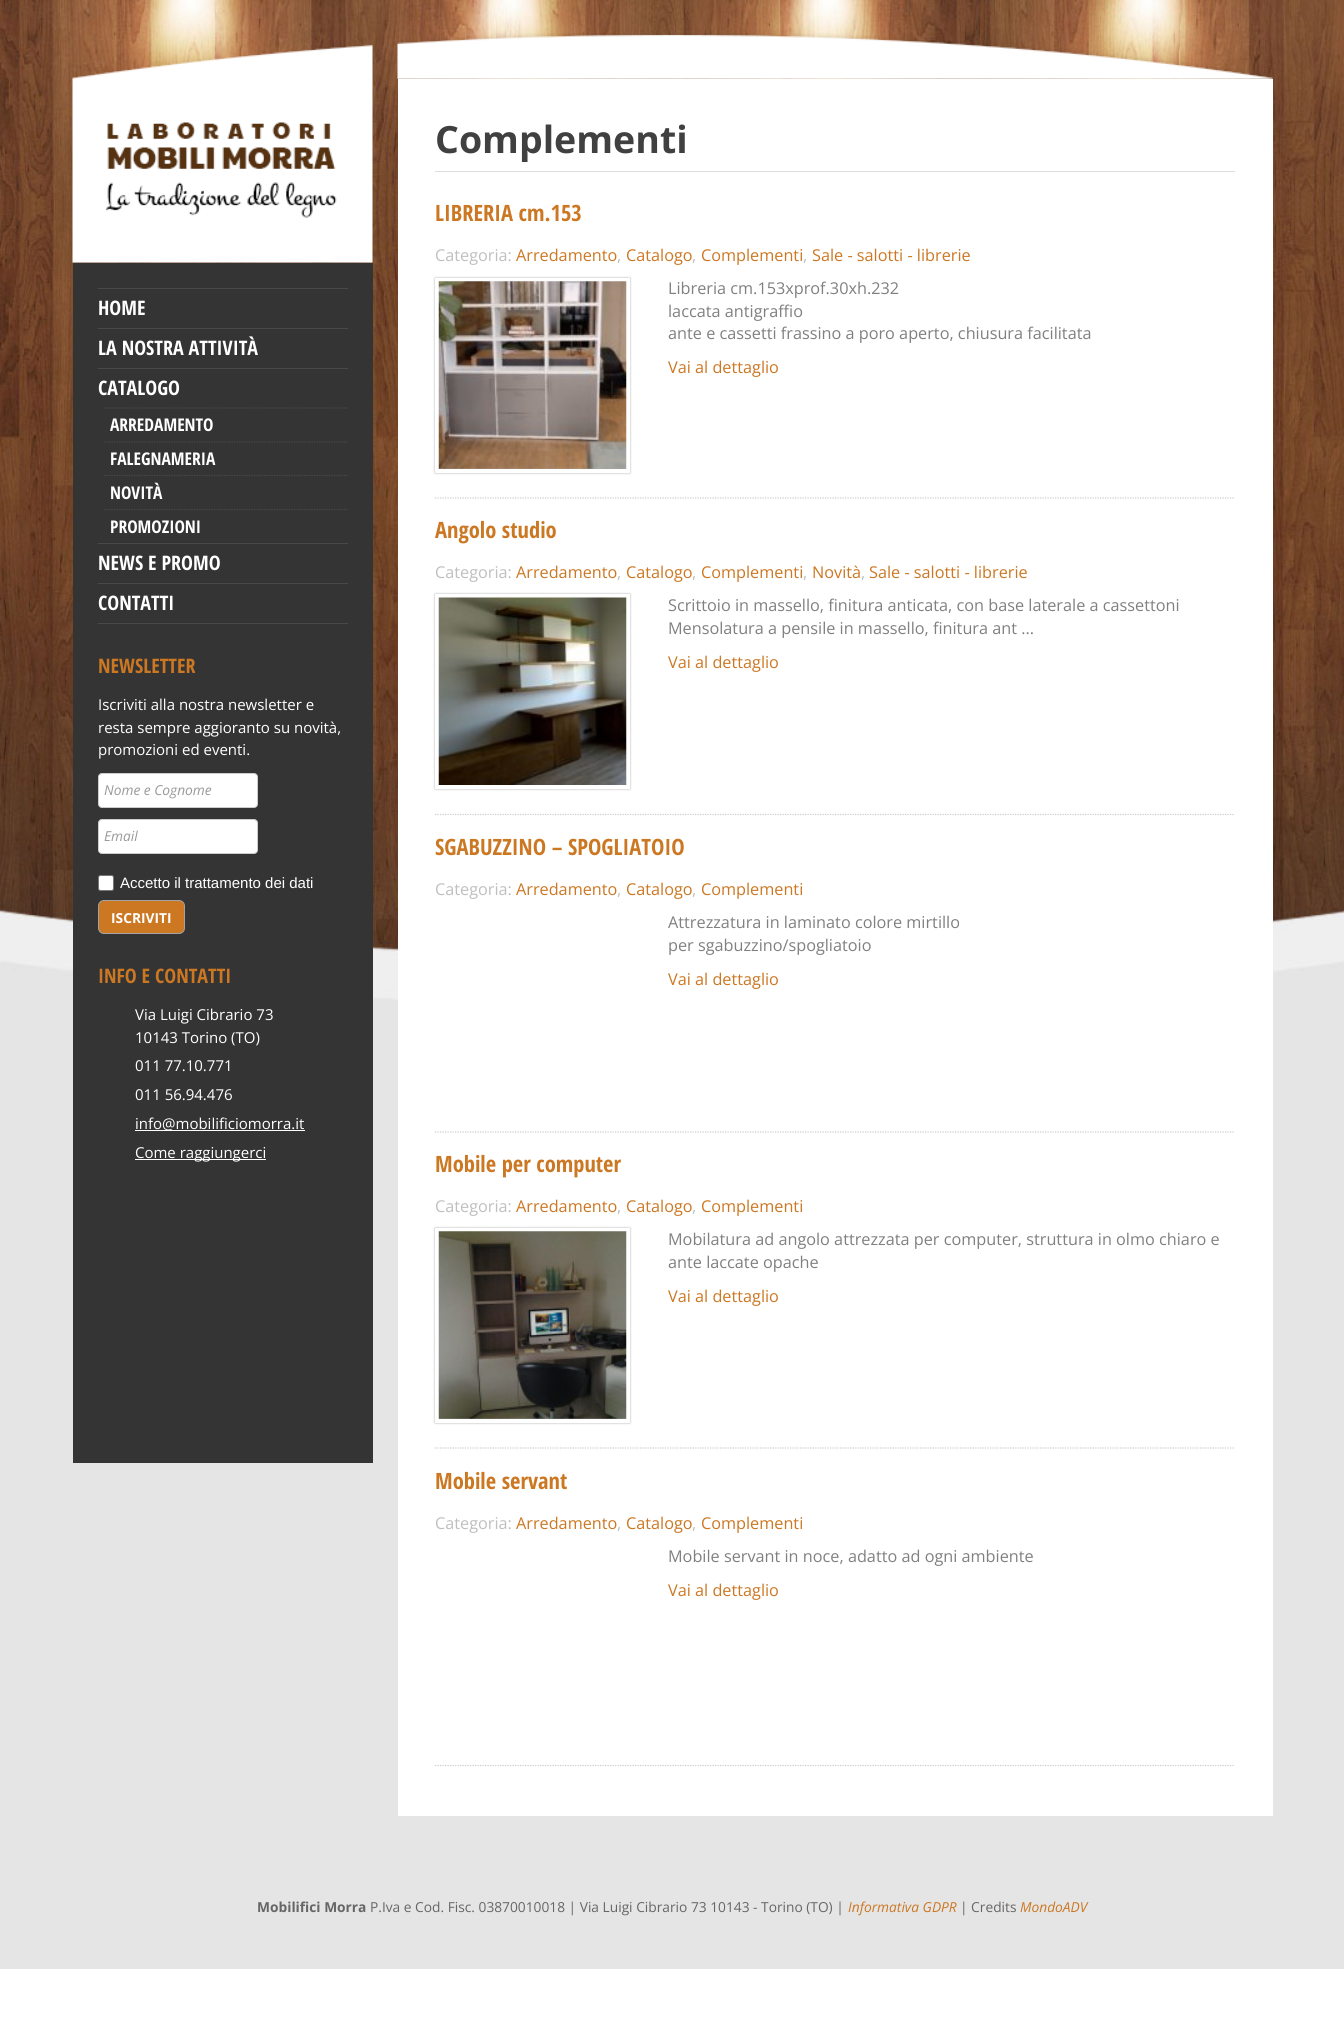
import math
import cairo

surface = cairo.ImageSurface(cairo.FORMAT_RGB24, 1344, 2043)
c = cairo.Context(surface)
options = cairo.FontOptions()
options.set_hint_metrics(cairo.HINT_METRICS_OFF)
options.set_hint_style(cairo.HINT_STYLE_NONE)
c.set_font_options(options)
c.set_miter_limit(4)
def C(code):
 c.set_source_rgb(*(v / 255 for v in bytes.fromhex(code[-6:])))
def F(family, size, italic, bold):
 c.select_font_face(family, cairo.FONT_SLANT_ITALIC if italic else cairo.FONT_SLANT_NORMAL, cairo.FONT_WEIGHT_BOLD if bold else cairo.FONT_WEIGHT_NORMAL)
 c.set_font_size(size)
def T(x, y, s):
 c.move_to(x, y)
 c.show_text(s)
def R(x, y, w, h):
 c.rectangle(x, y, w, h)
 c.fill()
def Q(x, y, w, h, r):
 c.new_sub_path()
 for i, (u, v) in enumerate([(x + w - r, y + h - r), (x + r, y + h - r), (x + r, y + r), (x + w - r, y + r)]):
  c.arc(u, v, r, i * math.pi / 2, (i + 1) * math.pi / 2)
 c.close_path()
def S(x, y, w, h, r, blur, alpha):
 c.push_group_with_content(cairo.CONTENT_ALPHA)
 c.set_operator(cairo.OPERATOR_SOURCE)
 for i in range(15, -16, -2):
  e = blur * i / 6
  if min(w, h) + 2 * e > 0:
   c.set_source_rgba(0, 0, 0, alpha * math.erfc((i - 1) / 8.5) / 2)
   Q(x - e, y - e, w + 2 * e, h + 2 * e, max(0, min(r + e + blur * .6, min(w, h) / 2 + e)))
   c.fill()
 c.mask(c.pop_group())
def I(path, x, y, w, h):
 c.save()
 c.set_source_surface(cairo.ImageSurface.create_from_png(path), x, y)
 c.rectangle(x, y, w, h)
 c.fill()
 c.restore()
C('ffffff')
c.paint()
C('e5e5e5')
R(0,1008,1344,961)
I('1.png',0,0,1344,1008)
I('2.png',72,44,301,219)
C('343434')
R(73,263,300,1200)
C('494949')
R(98,288,250,1)
R(98,328,250,1)
F('Open Sans Condensed',20,0,1)
C('ffffff')
T(98,315,'HOME')
C('494949')
R(98,368,250,1)
C('ffffff')
T(98,355,'LA NOSTRA ATTIVITÀ')
C('494949')
R(98,543,250,1)
C('ffffff')
T(98,395,'CATALOGO')
c.new_path()
c.move_to(104,408)
c.line_to(347.5,408)
C('494949')
c.set_line_width(1.2)
c.set_dash([1.25,1.25])
c.stroke()
F('Open Sans Condensed',17.5,0,1)
C('ffffff')
T(110,431,'ARREDAMENTO')
c.new_path()
c.move_to(104,442)
c.line_to(347.5,442)
C('494949')
c.stroke()
C('ffffff')
T(110,465,'FALEGNAMERIA')
c.new_path()
c.move_to(104,475.5)
c.line_to(347.5,475.5)
C('494949')
c.stroke()
C('ffffff')
T(110,499,'NOVITÀ')
c.new_path()
c.move_to(104,509.5)
c.line_to(347.5,509.5)
C('494949')
c.stroke()
C('ffffff')
T(110,533,'PROMOZIONI')
C('494949')
R(98,583,250,1)
F('Open Sans Condensed',20,0,1)
C('ffffff')
T(98,570,'NEWS E PROMO')
C('494949')
R(98,623,250,1)
C('ffffff')
T(98,610,'CONTATTI')
C('cc7722')
T(98,673,'NEWSLETTER')
F('Open Sans',15,0,0)
C('ffffff')
T(98,710,'Iscriviti alla nostra newsletter e')
T(98,733,'resta sempre aggioranto su novità,')
T(98,755,'promozioni ed eventi.')
Q(98.5,773.5,159,34,3.5)
c.fill_preserve()
C('cccccc')
c.set_line_width(1)
c.set_dash([])
c.stroke()
F('Open Sans',13.75,1,0)
C('999999')
T(104,795,'Nome e Cognome')
C('ffffff')
Q(98.5,819.5,159,34,3.5)
c.fill_preserve()
C('cccccc')
c.stroke()
C('999999')
T(104,841,'Email')
C('ffffff')
Q(98.5,875.5,15,15,2)
c.fill_preserve()
C('767676')
c.stroke()
F('Liberation Sans',15,0,0)
C('ffffff')
T(120,888,'Accetto il trattamento dei dati')
C('cc7722')
Q(98.5,900.5,86,33,5.5)
c.fill_preserve()
C('a3a3a3')
c.stroke()
F('Open Sans',13.75,0,1)
C('ffffff')
T(111,923,'ISCRIVITI')
F('Open Sans Condensed',20,0,1)
C('cc7722')
T(98,983,'INFO E CONTATTI')
F('Open Sans',15,0,0)
C('ffffff')
T(135,1020,'Via Luigi Cibrario 73')
T(135,1043,'10143 Torino (TO)')
T(135,1071,'011 77.10.771')
T(135,1100,'011 56.94.476')
R(135,1130,170,1)
T(135,1129,'info@mobilificiomorra.it')
R(135,1159,131,1)
T(135,1158,'Come raggiungerci')
I('3.png',397,33,876,46)
R(398,79,875,1737)
C('dddddd')
R(435,171,800,1)
F('Open Sans',37.5,0,1)
C('404040')
T(435,153,'Complementi')
c.new_path()
c.move_to(435,498)
c.line_to(1235,498)
C('cccccc')
c.set_line_width(1.2)
c.set_dash([1.25,1.25])
c.stroke()
F('Open Sans Condensed',22.5,0,1)
C('cc7722')
T(435,221,'LIBRERIA cm.153')
F('Open Sans',16.25,0,0)
C('bfbfbf')
T(435,261,'Categoria:')
C('cc7722')
T(516,261,'Arredamento')
C('bfbfbf')
T(617,261,',')
C('cc7722')
T(626,261,'Catalogo')
C('bfbfbf')
T(692,261,',')
C('cc7722')
T(701,261,'Complementi')
C('bfbfbf')
T(803,261,',')
C('cc7722')
T(812,261,'Sale - salotti - librerie')
C('aaaaaa')
S(435,278,195,195,0,1,1)
c.rectangle(437,280,191,191)
C('ffffff')
c.set_line_width(4)
c.set_dash([])
c.stroke()
I('4.png',438,281,189,188)
C('808080')
T(668,294,'Libreria cm.153xprof.30xh.232')
T(668,317,'laccata antigraffio')
T(668,339,'ante e cassetti frassino a poro aperto, chiusura facilitata')
C('cc7722')
T(668,373,'Vai al dettaglio')
c.new_path()
c.move_to(435,814.5)
c.line_to(1235,814.5)
C('cccccc')
c.set_line_width(1.2)
c.set_dash([1.25,1.25])
c.stroke()
F('Open Sans Condensed',22.5,0,1)
C('cc7722')
T(435,538,'Angolo studio')
F('Open Sans',16.25,0,0)
C('bfbfbf')
T(435,578,'Categoria:')
C('cc7722')
T(516,578,'Arredamento')
C('bfbfbf')
T(617,578,',')
C('cc7722')
T(626,578,'Catalogo')
C('bfbfbf')
T(692,578,',')
C('cc7722')
T(701,578,'Complementi')
C('bfbfbf')
T(803,578,',')
C('cc7722')
T(812,578,'Novità')
C('bfbfbf')
T(861,578,',')
C('cc7722')
T(869,578,'Sale - salotti - librerie')
C('aaaaaa')
S(435,594,195,195,0,1,1)
c.rectangle(437,596,191,191)
C('ffffff')
c.set_line_width(4)
c.set_dash([])
c.stroke()
I('5.png',438,597,189,188)
C('808080')
T(668,611,'Scrittoio in massello, finitura anticata, con base laterale a cassettoni')
T(668,634,'Mensolatura a pensile in massello, finitura ant ...')
C('cc7722')
T(668,668,'Vai al dettaglio')
c.new_path()
c.move_to(435,1132)
c.line_to(1235,1132)
C('cccccc')
c.set_line_width(1.2)
c.set_dash([1.25,1.25])
c.stroke()
F('Open Sans Condensed',22.5,0,1)
C('cc7722')
T(435,855,'SGABUZZINO – SPOGLIATOIO')
F('Open Sans',16.25,0,0)
C('bfbfbf')
T(435,895,'Categoria:')
C('cc7722')
T(516,895,'Arredamento')
C('bfbfbf')
T(617,895,',')
C('cc7722')
T(626,895,'Catalogo')
C('bfbfbf')
T(692,895,',')
C('cc7722')
T(701,895,'Complementi')
C('808080')
T(668,928,'Attrezzatura in laminato colore mirtillo')
T(668,951,'per sgabuzzino/spogliatoio')
C('cc7722')
T(668,985,'Vai al dettaglio')
c.new_path()
c.move_to(435,1448)
c.line_to(1235,1448)
C('cccccc')
c.stroke()
F('Open Sans Condensed',22.5,0,1)
C('cc7722')
T(435,1172,'Mobile per computer')
F('Open Sans',16.25,0,0)
C('bfbfbf')
T(435,1212,'Categoria:')
C('cc7722')
T(516,1212,'Arredamento')
C('bfbfbf')
T(617,1212,',')
C('cc7722')
T(626,1212,'Catalogo')
C('bfbfbf')
T(692,1212,',')
C('cc7722')
T(701,1212,'Complementi')
C('aaaaaa')
S(435,1228,195,195,0,1,1)
c.rectangle(437,1230,191,191)
C('ffffff')
c.set_line_width(4)
c.set_dash([])
c.stroke()
I('6.png',438,1231,189,188)
C('808080')
T(668,1245,'Mobilatura ad angolo attrezzata per computer, struttura in olmo chiaro e')
T(668,1268,'ante laccate opache')
C('cc7722')
T(668,1302,'Vai al dettaglio')
c.new_path()
c.move_to(435,1765.5)
c.line_to(1235,1765.5)
C('cccccc')
c.set_line_width(1.2)
c.set_dash([1.25,1.25])
c.stroke()
F('Open Sans Condensed',22.5,0,1)
C('cc7722')
T(435,1489,'Mobile servant')
F('Open Sans',16.25,0,0)
C('bfbfbf')
T(435,1529,'Categoria:')
C('cc7722')
T(516,1529,'Arredamento')
C('bfbfbf')
T(617,1529,',')
C('cc7722')
T(626,1529,'Catalogo')
C('bfbfbf')
T(692,1529,',')
C('cc7722')
T(701,1529,'Complementi')
C('808080')
T(668,1562,'Mobile servant in noce, adatto ad ogni ambiente')
C('cc7722')
T(668,1596,'Vai al dettaglio')
F('Open Sans',13.75,0,1)
C('666666')
T(257,1912,'Mobilifici Morra')
F('Open Sans',13.75,0,0)
T(370,1912,'P.Iva e Cod. Fisc. 03870010018 | Via Luigi Cibrario 73 10143 - Torino (TO) |')
F('Open Sans',13.75,1,0)
C('cc7722')
T(848,1912,'Informativa GDPR')
F('Open Sans',13.75,0,0)
C('666666')
T(960,1912,'| Credits')
F('Open Sans',13.75,1,0)
C('cc7722')
T(1020,1912,'MondoADV')
surface.write_to_png('o.png')
